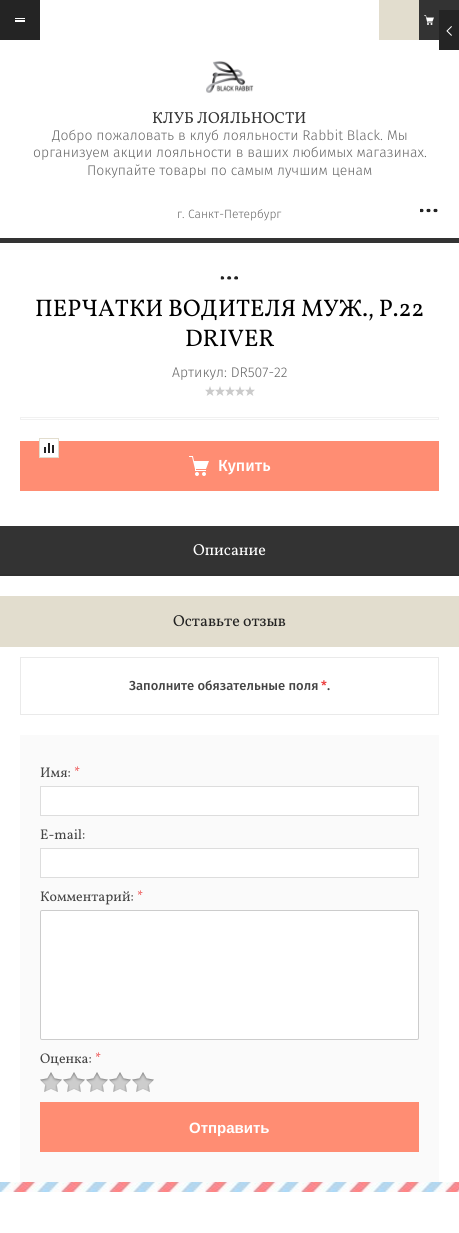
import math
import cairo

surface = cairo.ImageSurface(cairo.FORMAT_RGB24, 459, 1233)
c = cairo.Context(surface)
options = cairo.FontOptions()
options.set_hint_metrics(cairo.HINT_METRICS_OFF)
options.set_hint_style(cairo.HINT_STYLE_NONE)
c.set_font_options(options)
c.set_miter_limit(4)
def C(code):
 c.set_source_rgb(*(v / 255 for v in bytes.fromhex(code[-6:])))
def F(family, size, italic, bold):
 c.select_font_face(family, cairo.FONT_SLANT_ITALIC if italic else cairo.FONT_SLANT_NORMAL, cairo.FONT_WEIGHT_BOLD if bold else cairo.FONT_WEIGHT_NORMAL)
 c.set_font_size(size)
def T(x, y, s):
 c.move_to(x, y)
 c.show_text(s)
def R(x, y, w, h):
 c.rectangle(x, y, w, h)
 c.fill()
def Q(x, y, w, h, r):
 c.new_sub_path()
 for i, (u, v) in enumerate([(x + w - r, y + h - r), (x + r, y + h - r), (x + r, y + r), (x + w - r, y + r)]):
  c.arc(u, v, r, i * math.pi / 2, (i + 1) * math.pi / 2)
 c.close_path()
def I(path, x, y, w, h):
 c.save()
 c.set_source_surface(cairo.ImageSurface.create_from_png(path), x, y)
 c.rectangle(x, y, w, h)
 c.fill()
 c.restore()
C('333333')
c.paint()
C('ffffff')
R(40,0,339,40)
C('242424')
R(0,0,40,40)
C('ffffff')
R(15,18,10,1)
R(15,20,10,2)
C('e2ddce')
R(379,0,40,40)
I('1.png',424,15,10,10)
C('ffffff')
R(0,40,459,198)
C('242424')
R(439,10,20,40)
I('2.png',446,26,6,10)
I('3.png',206,61,48,32)
F('Vollkorn',16,0,0)
C('333333')
T(152,123,'КЛУБ ЛОЯЛЬНОСТИ')
F('Fira Sans Light',14,0,0)
C('666666')
T(52,140,'Добро пожаловать в клуб лояльности Rabbit Black. Мы')
T(33,157,'организуем акции лояльности в ваших любимых магазинах.')
T(87,175,'Покупайте товары по самым лучшим ценам')
F('Fira Sans Light',12,0,0)
T(177,218,'г. Санкт-Петербург')
I('4.png',420,208,18,5)
C('ffffff')
R(0,243,459,939)
I('5.png',220,276,18,4)
F('Vollkorn',24,0,0)
C('000000')
T(35,316,'ПЕРЧАТКИ ВОДИТЕЛЯ МУЖ., Р.22')
T(185,346,'DRIVER')
F('Fira Sans Light',14,0,0)
C('666666')
T(172,377,'Артикул: DR507-22')
I('6.png',205,386,50,10)
c.rectangle(20.5,417.5,418,2)
C('f1f1f1')
c.set_line_width(1)
c.stroke()
C('ff8d73')
R(20,441,419,50)
C('ffffff')
R(40,441,18,16)
c.rectangle(39.5,438.5,19,19)
C('e2ddce')
c.stroke()
I('7.png',44,443,10,10)
I('8.png',189,456,20,20)
F('Fira Sans Medium',16,0,0)
C('ffffff')
T(218,471,'Купить')
C('333333')
R(0,526,459,48)
C('303030')
R(0,574,459,2)
F('Vollkorn',16,0,0)
C('ffffff')
T(193,555,'Описание')
C('e2ddce')
R(0,596,459,51)
C('222222')
T(173,626,'Оставьте отзыв')
c.rectangle(20.5,657.5,418,57)
C('eaeaea')
c.stroke()
F('Fira Sans Medium',13,0,0)
C('444444')
T(129,690,'Заполните обязательные поля')
C('eb3c3c')
T(321,690,'*')
C('444444')
T(327,690,'.')
C('fafafa')
R(20,735,419,447)
F('Vollkorn',14,0,0)
C('444444')
T(40,777,'Имя:')
C('eb3c3c')
T(74,777,'*')
C('ffffff')
c.rectangle(40.5,786.5,378,29)
c.fill_preserve()
C('dddddd')
c.stroke()
C('444444')
T(40,839,'E-mail:')
C('ffffff')
c.rectangle(40.5,848.5,378,29)
c.fill_preserve()
C('dddddd')
c.stroke()
C('444444')
T(40,901,'Комментарий:')
C('eb3c3c')
T(137,901,'*')
C('ffffff')
Q(40.5,910.5,378,129,1.5)
c.fill_preserve()
C('cccccc')
c.stroke()
C('444444')
T(40,1063,'Оценка:')
C('eb3c3c')
T(95,1063,'*')
I('9.png',40,1072,114,20)
C('ff8d73')
R(40,1102,379,50)
F('Liberation Sans',15,0,1)
C('ffffff')
T(189,1133,'Отправить')
R(0,1192,459,41)
I('10.png',0,1182,459,10)
surface.write_to_png('o.png')
